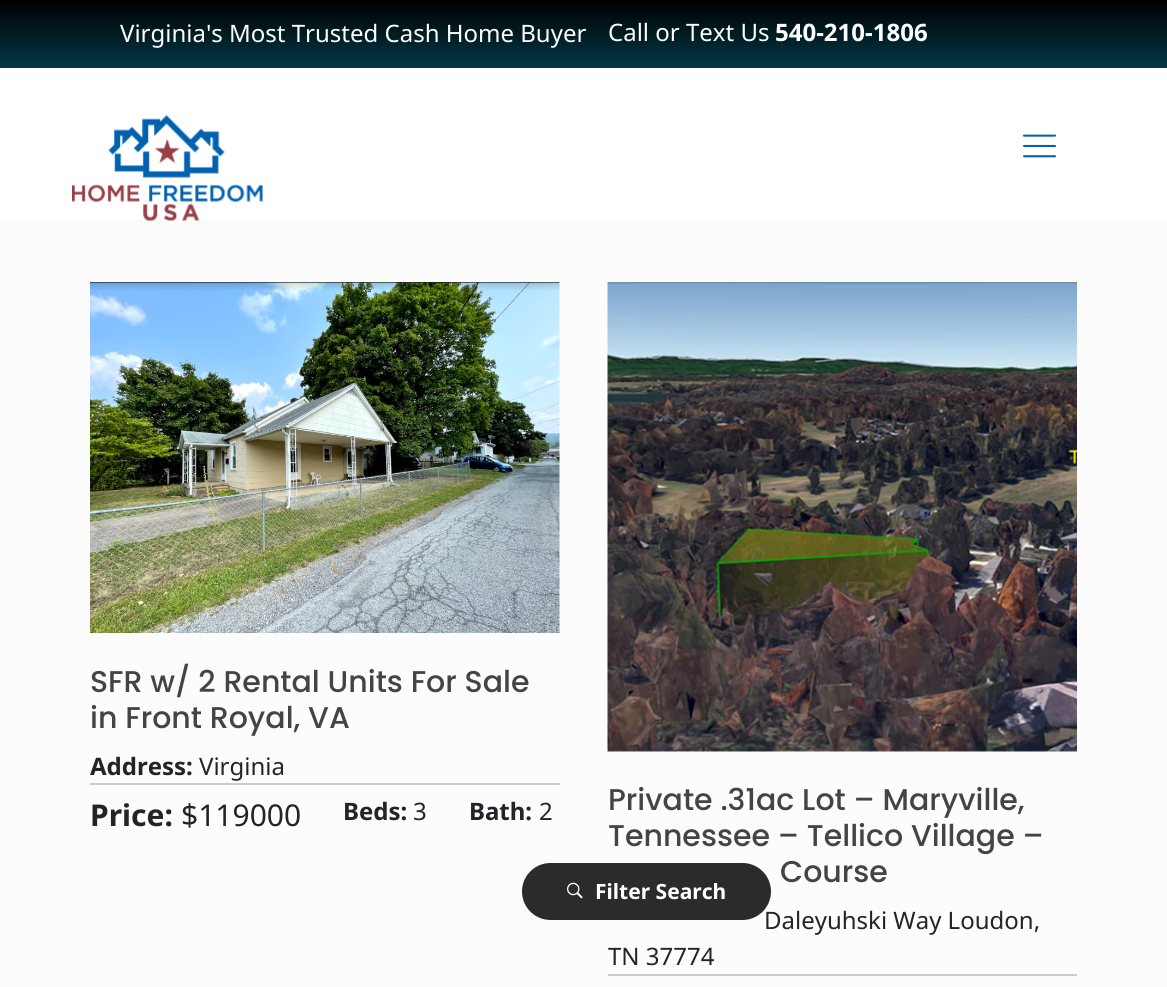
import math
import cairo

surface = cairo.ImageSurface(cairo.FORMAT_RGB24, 1167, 987)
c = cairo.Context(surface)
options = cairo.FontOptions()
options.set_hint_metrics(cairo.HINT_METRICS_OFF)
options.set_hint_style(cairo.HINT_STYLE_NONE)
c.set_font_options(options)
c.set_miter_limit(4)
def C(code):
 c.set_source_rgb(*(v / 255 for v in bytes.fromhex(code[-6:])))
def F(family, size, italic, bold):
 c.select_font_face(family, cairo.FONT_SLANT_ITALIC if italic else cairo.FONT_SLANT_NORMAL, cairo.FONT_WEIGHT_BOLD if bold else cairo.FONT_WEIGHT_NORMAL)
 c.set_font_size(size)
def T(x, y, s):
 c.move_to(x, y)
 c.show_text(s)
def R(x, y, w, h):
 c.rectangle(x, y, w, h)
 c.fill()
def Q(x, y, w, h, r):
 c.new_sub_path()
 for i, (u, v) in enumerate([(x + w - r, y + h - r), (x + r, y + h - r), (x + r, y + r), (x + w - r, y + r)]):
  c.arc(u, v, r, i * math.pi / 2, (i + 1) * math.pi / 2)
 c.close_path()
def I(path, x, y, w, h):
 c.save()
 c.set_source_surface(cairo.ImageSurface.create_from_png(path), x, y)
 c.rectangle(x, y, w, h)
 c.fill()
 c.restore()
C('fcfcfc')
c.paint()
gradient = cairo.LinearGradient(584,0,584,68)
gradient.add_color_stop_rgba(0,0,0,0,1)
gradient.add_color_stop_rgba(1,0.008,0.22,0.267,1)
c.set_source(gradient)
R(0,0,1167,68)
F('Noto Sans',24,0,0)
C('ffffff')
T(120,42,'Virginia\'s Most Trusted Cash Home Buyer')
T(608,41,'Call or Text Us')
F('Noto Sans',24,0,1)
T(775,41,'540-210-1806')
R(0,68,1167,151)
I('1.png',72,115,191,106)
I('2.png',1023,134,33,24)
I('3.png',90,282,470,351)
F('Poppins Medium',30,0,0)
C('444444')
T(90,692,'SFR w/ 2 Rental Units For Sale')
T(90,728,'in Front Royal, VA')
C('cccccc')
R(90,783,470,2)
F('Noto Sans',24,0,1)
C('212529')
T(90,775,'Address:')
F('Noto Sans',24,0,0)
T(199,775,'Virginia')
F('Noto Sans',30,0,1)
T(90,826,'Price:')
F('Noto Sans',30,0,0)
T(181,826,'$119000')
F('Noto Sans',24,0,1)
T(343,820,'Beds:')
F('Noto Sans',24,0,0)
T(413,820,'3')
F('Noto Sans',24,0,1)
T(469,820,'Bath:')
F('Noto Sans',24,0,0)
T(539,820,'2')
I('4.png',607,282,470,470)
F('Poppins Medium',30,0,0)
C('444444')
T(608,810,'Private .31ac Lot – Maryville,')
T(608,846,'Tennessee – Tellico Village –')
T(780,882,'Course')
C('cccccc')
R(608,974,469,2)
F('Noto Sans',24,0,0)
C('212529')
T(764,929,'Daleyuhski Way Loudon,')
T(608,965,'TN 37774')
C('2b2b2b')
Q(522,863,249,57,28.5)
c.fill()
I('5.png',567,882,16,17)
F('Noto Sans',21,0,1)
C('ffffff')
T(595,899,'Filter Search')
surface.write_to_png('o.png')
